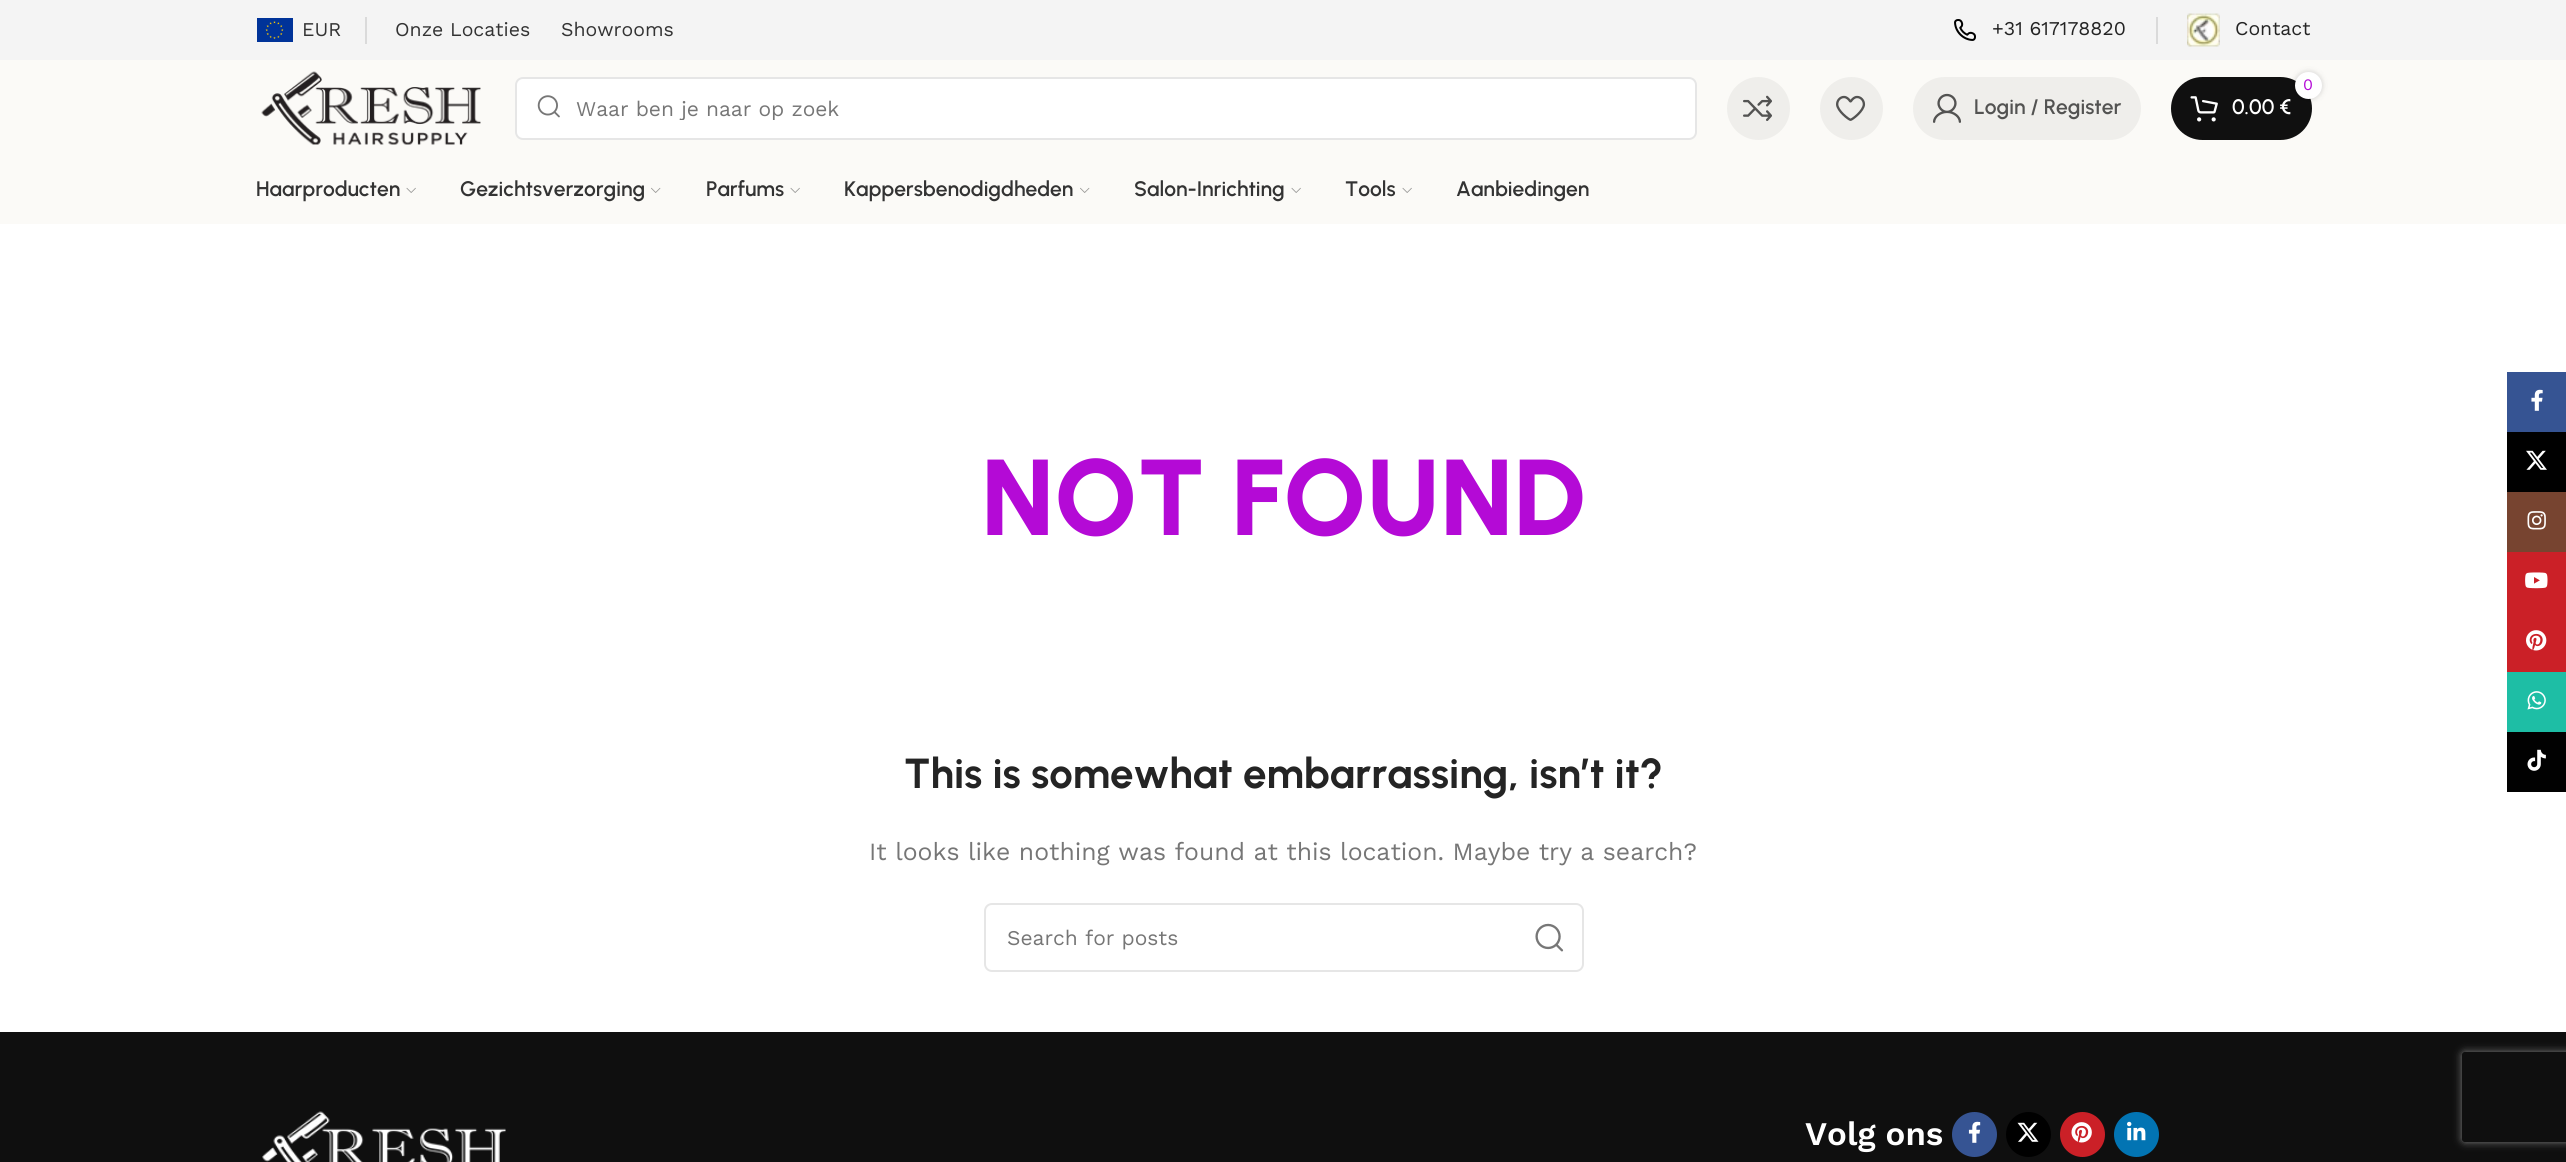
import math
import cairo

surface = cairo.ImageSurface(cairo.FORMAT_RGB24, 2566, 1162)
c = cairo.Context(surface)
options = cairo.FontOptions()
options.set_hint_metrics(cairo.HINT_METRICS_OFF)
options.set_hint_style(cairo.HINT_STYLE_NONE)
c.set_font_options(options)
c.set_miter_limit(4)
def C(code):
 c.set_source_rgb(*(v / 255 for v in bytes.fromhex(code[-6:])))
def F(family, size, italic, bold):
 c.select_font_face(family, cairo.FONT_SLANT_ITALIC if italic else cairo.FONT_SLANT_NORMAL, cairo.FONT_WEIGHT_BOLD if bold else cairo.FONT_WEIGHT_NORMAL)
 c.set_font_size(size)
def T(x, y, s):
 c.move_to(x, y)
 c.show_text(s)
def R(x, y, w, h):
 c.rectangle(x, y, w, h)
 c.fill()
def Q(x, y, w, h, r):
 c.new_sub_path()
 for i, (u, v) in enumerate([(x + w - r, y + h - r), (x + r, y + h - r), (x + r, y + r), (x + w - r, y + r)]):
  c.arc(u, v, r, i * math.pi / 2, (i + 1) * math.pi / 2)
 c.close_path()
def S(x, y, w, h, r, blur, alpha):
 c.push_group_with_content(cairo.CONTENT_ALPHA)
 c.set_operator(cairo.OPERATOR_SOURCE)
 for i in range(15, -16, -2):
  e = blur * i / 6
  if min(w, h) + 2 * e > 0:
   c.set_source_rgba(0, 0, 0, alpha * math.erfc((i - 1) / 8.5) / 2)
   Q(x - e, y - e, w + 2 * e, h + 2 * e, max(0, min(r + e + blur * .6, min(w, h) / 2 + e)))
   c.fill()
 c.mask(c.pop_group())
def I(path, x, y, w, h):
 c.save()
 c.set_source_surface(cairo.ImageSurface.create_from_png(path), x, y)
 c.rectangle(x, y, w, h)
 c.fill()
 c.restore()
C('ffffff')
c.paint()
C('f4f4f4')
R(0,0,2566,60)
I('1.png',257,18,36,24)
F('Work Sans',19.5,0,0)
C('333333')
T(302,36,'EUR')
C('dadada')
R(365,17,2,27)
C('333333')
T(395,36,'Onze Locaties')
T(561,36,'Showrooms')
I('2.png',1954,19,22,22)
C('242424')
T(1992,35,'+31 617178820')
C('dadada')
R(2156,17,2,27)
I('3.png',2187,13,33,34)
C('242424')
T(2235,35,'Contact')
C('fbfaf7')
R(0,60,2566,164)
I('4.png',261,71,220,74)
C('ffffff')
Q(515,77,1182,63,8)
c.fill()
Q(516,78,1180,61,7)
c.set_source_rgba(0,0,0,0.1)
c.stroke()
I('5.png',537,95,23,23)
c.save()
c.rectangle(576,96,1074,24)
c.clip()
F('Work Sans',21,0,0)
C('767676')
T(576,116,'Waar ben je naar op zoek')
c.restore()
C('efeeeb')
c.new_path()
c.arc(1758.5,108.5,31.5,0,2 * math.pi)
c.fill()
I('6.png',1743,95,29,26)
c.arc(1851.5,108.5,31.5,0,2 * math.pi)
c.fill()
I('7.png',1836,95,30,26)
Q(1913,77,228,63,31.5)
c.fill()
I('8.png',1933,93,28,30)
F('Urbanist SemiBold',21,0,0)
C('535352')
T(1974,114,'Login / Register')
C('101010')
Q(2171,77,141,63,31.5)
c.fill()
C('000000')
S(2295,72,27,27,13.5,3,.17)
C('ffffff')
c.arc(2308.5,85.5,13.5,0,2 * math.pi)
c.fill()
F('Work Sans',16,0,0)
C('b40ad6')
T(2303,90,'0')
I('9.png',2190,96,28,26)
F('Urbanist SemiBold',21,0,0)
C('ffffff')
T(2232,114,'0.00 €')
C('333333')
T(256,196,'Haarproducten')
I('10.png',406,187,10,6)
T(460,196,'Gezichtsverzorging')
I('11.png',651,187,10,6)
T(706,196,'Parfums')
I('10.png',790,187,10,6)
T(844,196,'Kappersbenodigdheden')
I('11.png',1080,187,10,6)
T(1134,196,'Salon-Inrichting')
I('10.png',1291,187,10,6)
T(1345,196,'Tools')
I('10.png',1402,187,10,6)
T(1456,196,'Aanbiedingen')
F('Urbanist ExtraBold',107.75,0,0)
C('b40ad6')
T(981,535,'NOT FOUND')
F('Urbanist',42,0,1)
C('242424')
T(904,788,'This is somewhat embarrassing, isn’t it?')
F('Work Sans',24.75,0,0)
C('767676')
T(869,860,'It looks like nothing was found at this location. Maybe try a search?')
Q(985,904,598,67,7)
C('e6e6e6')
c.stroke()
F('Work Sans',21,0,0)
C('767676')
T(1007,945,'Search for posts')
I('12.png',1535,923,29,29)
C('0f0f0f')
R(0,1032,2566,130)
I('13.png',262,1111,244,51)
F('Work Sans SemiBold',33,0,0)
C('ffffff')
T(1805,1145,'Volg ons')
C('365493')
c.new_path()
c.arc(1974.5,1134.5,22.5,0,2 * math.pi)
c.fill()
I('14.png',1968,1121,13,22)
C('000000')
c.arc(2028.5,1134.5,22.5,0,2 * math.pi)
c.fill()
I('15.png',2017,1122,22,20)
C('cb2027')
c.arc(2082.5,1134.5,22.5,0,2 * math.pi)
c.fill()
I('16.png',2071,1122,21,21)
C('0274b3')
c.arc(2136.5,1134.5,22.5,0,2 * math.pi)
c.fill()
I('17.png',2127,1121,19,20)
C('365493')
R(2507,372,59,60)
I('18.png',2531,389,12,22)
C('000000')
R(2507,432,59,60)
I('19.png',2526,450,21,20)
C('774430')
R(2507,492,59,60)
I('20.png',2527,511,19,19)
C('cb2027')
R(2507,552,59,120)
I('21.png',2525,572,23,17)
I('22.png',2526,630,21,21)
C('1ebea5')
R(2507,672,59,60)
I('23.png',2527,691,19,19)
C('010101')
R(2507,732,59,60)
I('24.png',2527,749,19,22)
c.save()
c.set_fill_rule(cairo.FILL_RULE_EVEN_ODD)
c.new_path()
c.move_to(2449,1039)
c.line_to(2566,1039)
c.line_to(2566,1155)
c.line_to(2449,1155)
c.close_path()
c.move_to(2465,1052)
c.line_to(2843,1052)
c.curve_to(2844.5,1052,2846,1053.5,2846,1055)
c.line_to(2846,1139)
c.curve_to(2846,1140.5,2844.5,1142,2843,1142)
c.line_to(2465,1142)
c.curve_to(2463.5,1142,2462,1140.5,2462,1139)
c.line_to(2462,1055)
c.curve_to(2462,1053.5,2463.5,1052,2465,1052)
c.close_path()
c.clip()
C('808080')
S(2462,1052,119,90,3,4,1)
c.restore()
surface.write_to_png('o.png')
